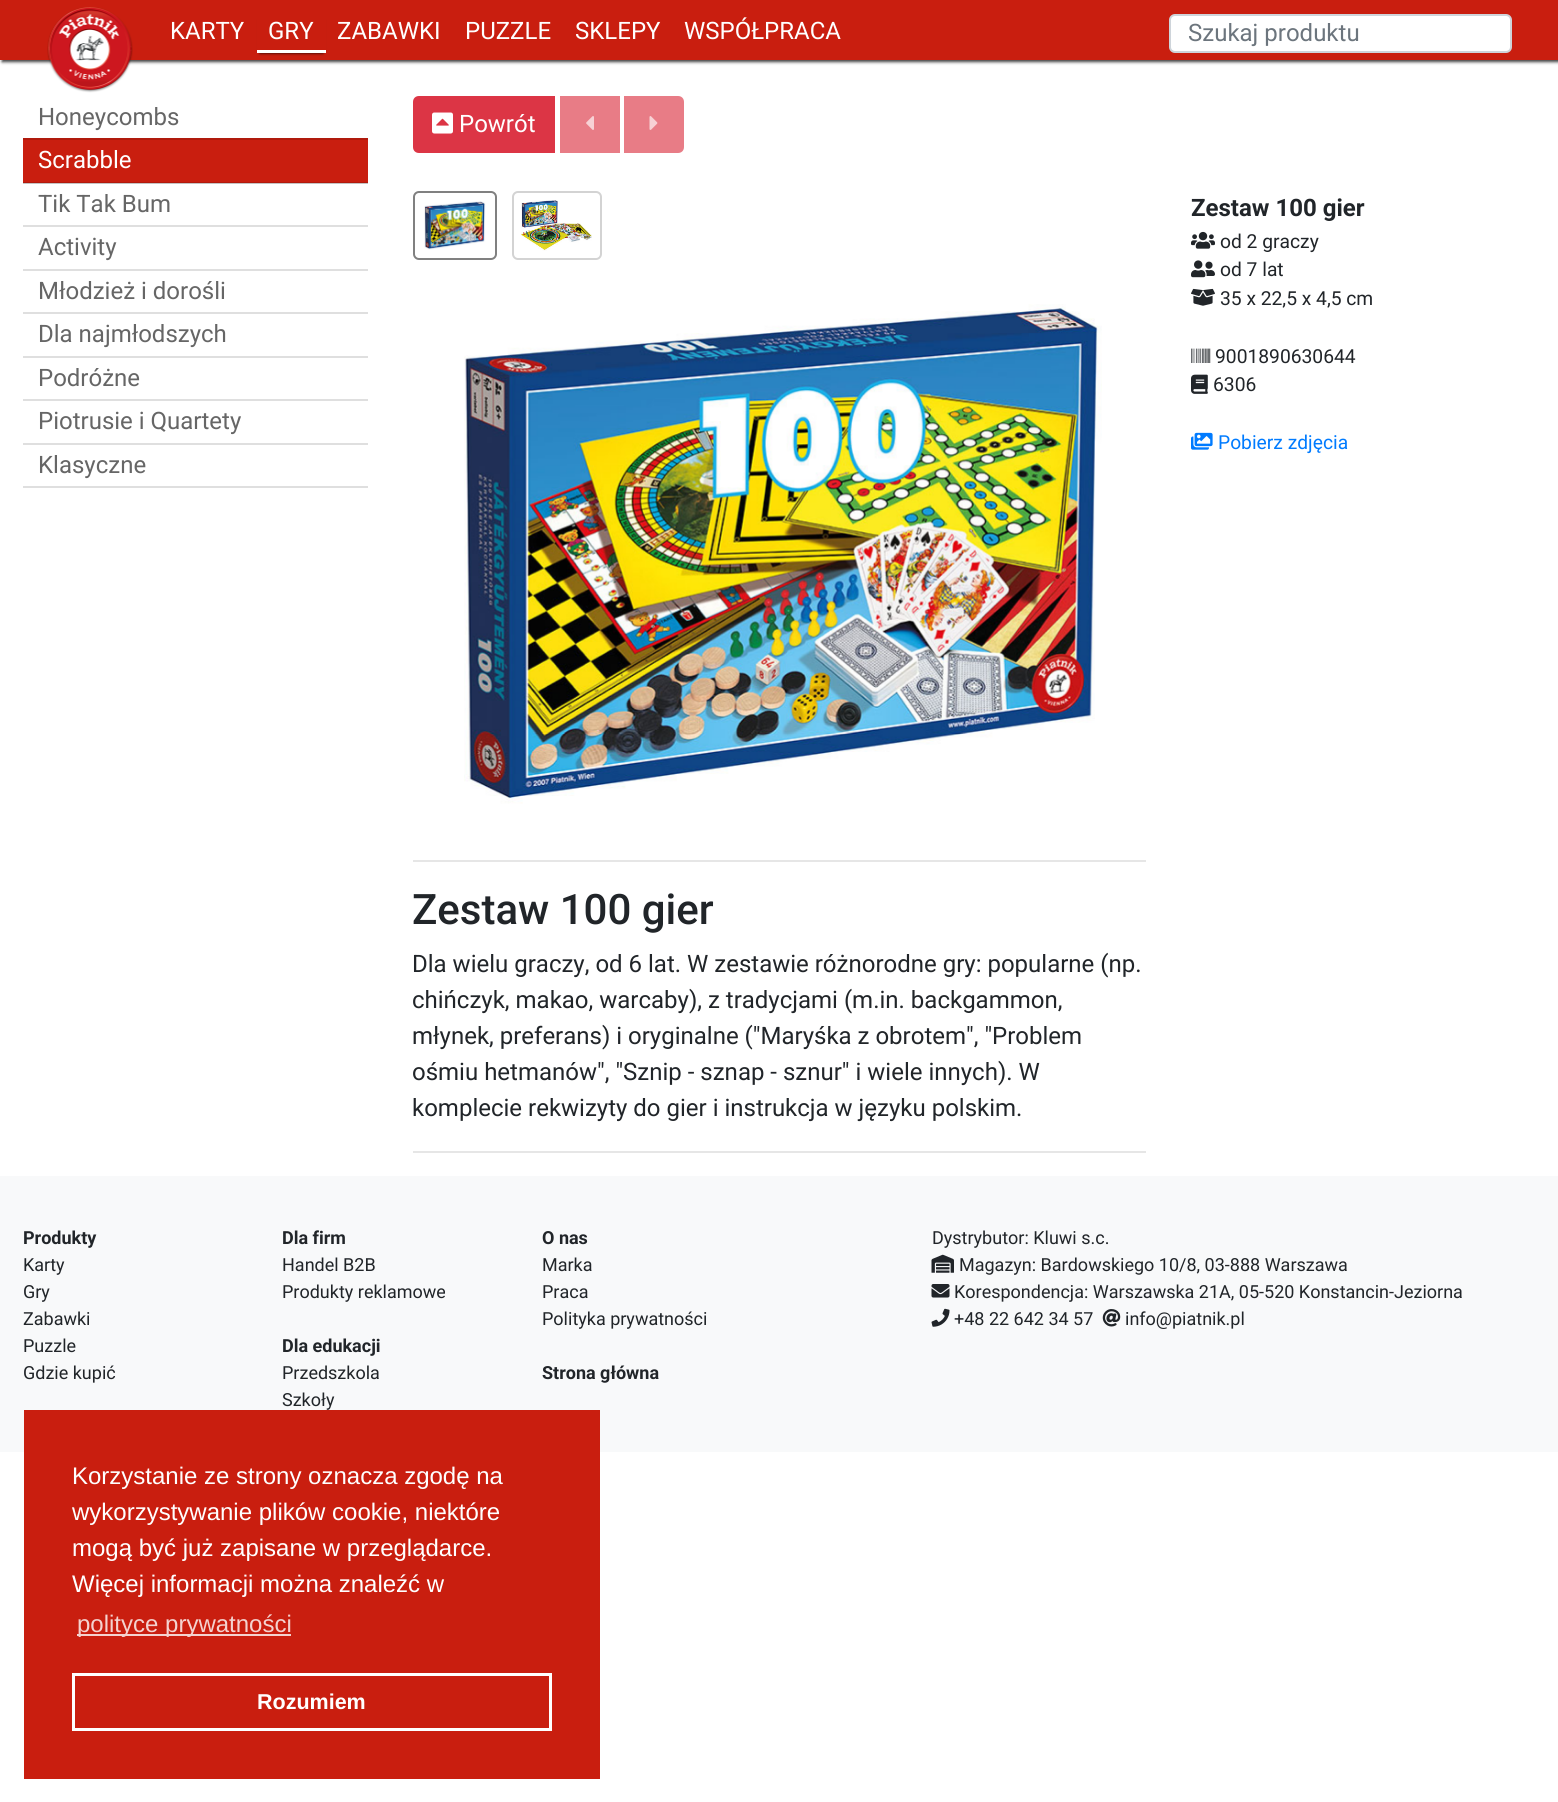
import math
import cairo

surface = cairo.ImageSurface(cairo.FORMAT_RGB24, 1558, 1802)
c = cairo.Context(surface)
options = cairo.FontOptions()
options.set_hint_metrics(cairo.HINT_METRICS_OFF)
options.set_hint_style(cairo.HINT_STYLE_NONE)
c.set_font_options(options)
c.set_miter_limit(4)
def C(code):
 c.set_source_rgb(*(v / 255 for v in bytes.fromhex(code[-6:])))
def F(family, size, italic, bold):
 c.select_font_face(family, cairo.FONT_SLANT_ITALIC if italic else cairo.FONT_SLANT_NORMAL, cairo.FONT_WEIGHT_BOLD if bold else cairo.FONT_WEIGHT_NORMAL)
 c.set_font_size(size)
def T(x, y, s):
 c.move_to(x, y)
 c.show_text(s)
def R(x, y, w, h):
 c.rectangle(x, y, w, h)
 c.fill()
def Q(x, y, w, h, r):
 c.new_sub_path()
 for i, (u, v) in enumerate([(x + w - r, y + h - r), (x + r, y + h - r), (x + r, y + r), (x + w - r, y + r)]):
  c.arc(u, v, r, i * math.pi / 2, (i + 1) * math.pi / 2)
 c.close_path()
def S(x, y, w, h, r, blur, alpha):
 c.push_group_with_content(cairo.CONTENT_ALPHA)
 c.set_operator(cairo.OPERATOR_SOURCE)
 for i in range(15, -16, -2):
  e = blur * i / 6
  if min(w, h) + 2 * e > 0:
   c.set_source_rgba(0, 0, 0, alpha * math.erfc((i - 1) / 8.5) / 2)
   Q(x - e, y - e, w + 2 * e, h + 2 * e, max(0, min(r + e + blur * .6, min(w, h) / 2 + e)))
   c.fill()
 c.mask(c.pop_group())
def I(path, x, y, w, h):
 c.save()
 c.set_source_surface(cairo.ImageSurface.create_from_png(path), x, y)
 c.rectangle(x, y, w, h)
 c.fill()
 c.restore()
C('ffffff')
c.paint()
C('000000')
S(2,2,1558,60,0,1.5,.75)
C('c91e0f')
R(0,0,1558,60)
I('1.png',47,7,86,86)
F('Roboto',24,0,0)
C('ffffff')
T(170,39,'KARTY')
c.save()
c.set_fill_rule(cairo.FILL_RULE_EVEN_ODD)
c.new_path()
c.move_to(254,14)
c.line_to(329,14)
c.line_to(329,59)
c.line_to(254,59)
c.close_path()
c.move_to(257,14)
c.line_to(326,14)
c.line_to(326,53)
c.line_to(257,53)
c.close_path()
c.clip()
C('000000')
S(260,20,63,33,0,1.5,1)
c.restore()
R(257,50,69,3)
T(268,39,'GRY')
T(337,39,'ZABAWKI')
T(465,39,'PUZZLE')
T(575,39,'SKLEPY')
T(684,39,'WSPÓŁPRACA')
Q(1170,15,341,37,5)
c.fill_preserve()
C('ced4da')
c.stroke()
C('6c757d')
T(1188,41,'Szukaj produktu')
C('666666')
T(38,125,'Honeycombs')
C('c91e0f')
R(23,140,345,42)
C('b11a0d')
R(23,182,345,1)
C('b01a0d')
R(23,138,345,2)
C('ffffff')
T(38,168,'Scrabble')
C('c4c4c4')
R(23,183,345,1)
C('666666')
T(38,212,'Tik Tak Bum')
C('dfdfdf')
R(23,225,345,2)
C('666666')
T(38,255,'Activity')
C('dfdfdf')
R(23,269,345,2)
C('666666')
T(38,299,'Młodzież i dorośli')
C('dfdfdf')
R(23,312,345,2)
C('666666')
T(38,342,'Dla najmłodszych')
C('dfdfdf')
R(23,356,345,2)
C('666666')
T(38,386,'Podróżne')
C('dfdfdf')
R(23,399,345,2)
C('666666')
T(38,429,'Piotrusie i Quartety')
C('dfdfdf')
R(23,443,345,2)
R(23,486,345,2)
C('666666')
T(38,473,'Klasyczne')
C('dc3545')
c.new_path()
c.move_to(419,97)
c.line_to(554,97)
c.line_to(554,152)
c.line_to(419,152)
c.curve_to(416,152,414,150,414,147)
c.line_to(414,102)
c.curve_to(414,99,416,97,419,97)
c.close_path()
c.fill_preserve()
c.stroke()
I('2.png',432,112,21,22)
C('ffffff')
T(459,132,'Powrót')
C('e87c86')
R(560,96,60,57)
I('3.png',586,116,8,14)
c.new_path()
c.move_to(625,97)
c.line_to(678,97)
c.curve_to(681,97,683,99,683,102)
c.line_to(683,147)
c.curve_to(683,150,681,152,678,152)
c.line_to(625,152)
c.close_path()
c.fill_preserve()
c.stroke()
I('4.png',649,116,9,14)
F('Roboto',24,0,1)
C('212529')
T(1191,216,'Zestaw 100 gier')
I('5.png',1191,231,24,18)
F('Roboto',19.25,0,0)
T(1220,248,'od 2 graczy')
I('6.png',1191,260,24,18)
T(1220,276,'od 7 lat')
I('7.png',1191,288,24,18)
T(1220,305,'35 x 22,5 x 4,5 cm')
I('8.png',1191,348,20,15)
T(1215,363,'9001890630644')
I('9.png',1191,374,17,20)
T(1213,391,'6306')
I('10.png',1191,432,22,18)
C('007bff')
T(1218,449,'Pobierz zdjęcia')
Q(414,192,82,67,5)
C('808080')
c.stroke()
I('11.png',424,201,62,49)
Q(513,192,88,67,5)
C('d3d3d3')
c.stroke()
I('12.png',521,200,71,51)
I('13.png',464,304,638,500)
C('e6e6e6')
R(413,860,733,2)
F('Roboto Medium',42,0,0)
C('212529')
T(412,924,'Zestaw 100 gier')
F('Roboto',24,0,0)
T(412,972,'Dla wielu graczy, od 6 lat. W zestawie różnorodne gry: popularne (np.')
T(412,1008,'chińczyk, makao, warcaby), z tradycjami (m.in. backgammon,')
T(412,1044,'młynek, preferans) i oryginalne ("Maryśka z obrotem", "Problem')
T(412,1080,'ośmiu hetmanów", "Sznip - sznap - sznur" i wiele innych). W')
T(412,1116,'komplecie rekwizyty do gier i instrukcja w języku polskim.')
C('e6e6e6')
R(413,1151,733,2)
C('f8f9fa')
R(0,1176,1558,276)
F('Roboto',18,0,1)
C('212529')
T(23,1244,'Produkty')
F('Roboto',18,0,0)
T(23,1271,'Karty')
T(23,1298,'Gry')
T(23,1325,'Zabawki')
T(23,1352,'Puzzle')
T(23,1379,'Gdzie kupić')
F('Roboto',18,0,1)
T(282,1244,'Dla firm')
F('Roboto',18,0,0)
T(282,1271,'Handel B2B')
T(282,1298,'Produkty reklamowe')
F('Roboto',18,0,1)
T(282,1352,'Dla edukacji')
F('Roboto',18,0,0)
T(282,1379,'Przedszkola')
T(282,1406,'Szkoły')
F('Roboto',18,0,1)
T(542,1244,'O nas')
F('Roboto',18,0,0)
T(542,1271,'Marka')
T(542,1298,'Praca')
T(542,1325,'Polityka prywatności')
F('Roboto',18,0,1)
T(542,1379,'Strona główna')
F('Roboto',18,0,0)
T(932,1244,'Dystrybutor: Kluwi s.c.')
I('14.png',931,1254,23,19)
T(959,1271,'Magazyn: Bardowskiego 10/8, 03-888 Warszawa')
I('15.png',931,1284,19,14)
T(954,1298,'Korespondencja: Warszawska 21A, 05-520 Konstancin-Jeziorna')
I('16.png',931,1308,19,19)
T(954,1325,'+48 22 642 34 57')
I('17.png',1102,1309,19,18)
T(1125,1325,'info@piatnik.pl')
C('c91e0f')
R(24,1410,576,369)
F('Liberation Sans',24,0,0)
C('ffffff')
T(72,1484,'Korzystanie ze strony oznacza zgodę na')
T(72,1520,'wykorzystywanie plików cookie, niektóre')
T(72,1556,'mogą być już zapisane w przeglądarce.')
T(72,1592,'Więcej informacji można znaleźć w')
C('f4d2cf')
R(77,1634,214,2)
T(77,1632,'polityce prywatności')
c.rectangle(73.5,1674.5,477,55)
C('ffffff')
c.set_line_width(3)
c.stroke()
F('Liberation Sans',21.5,0,1)
T(257,1709,'Rozumiem')
surface.write_to_png('o.png')
